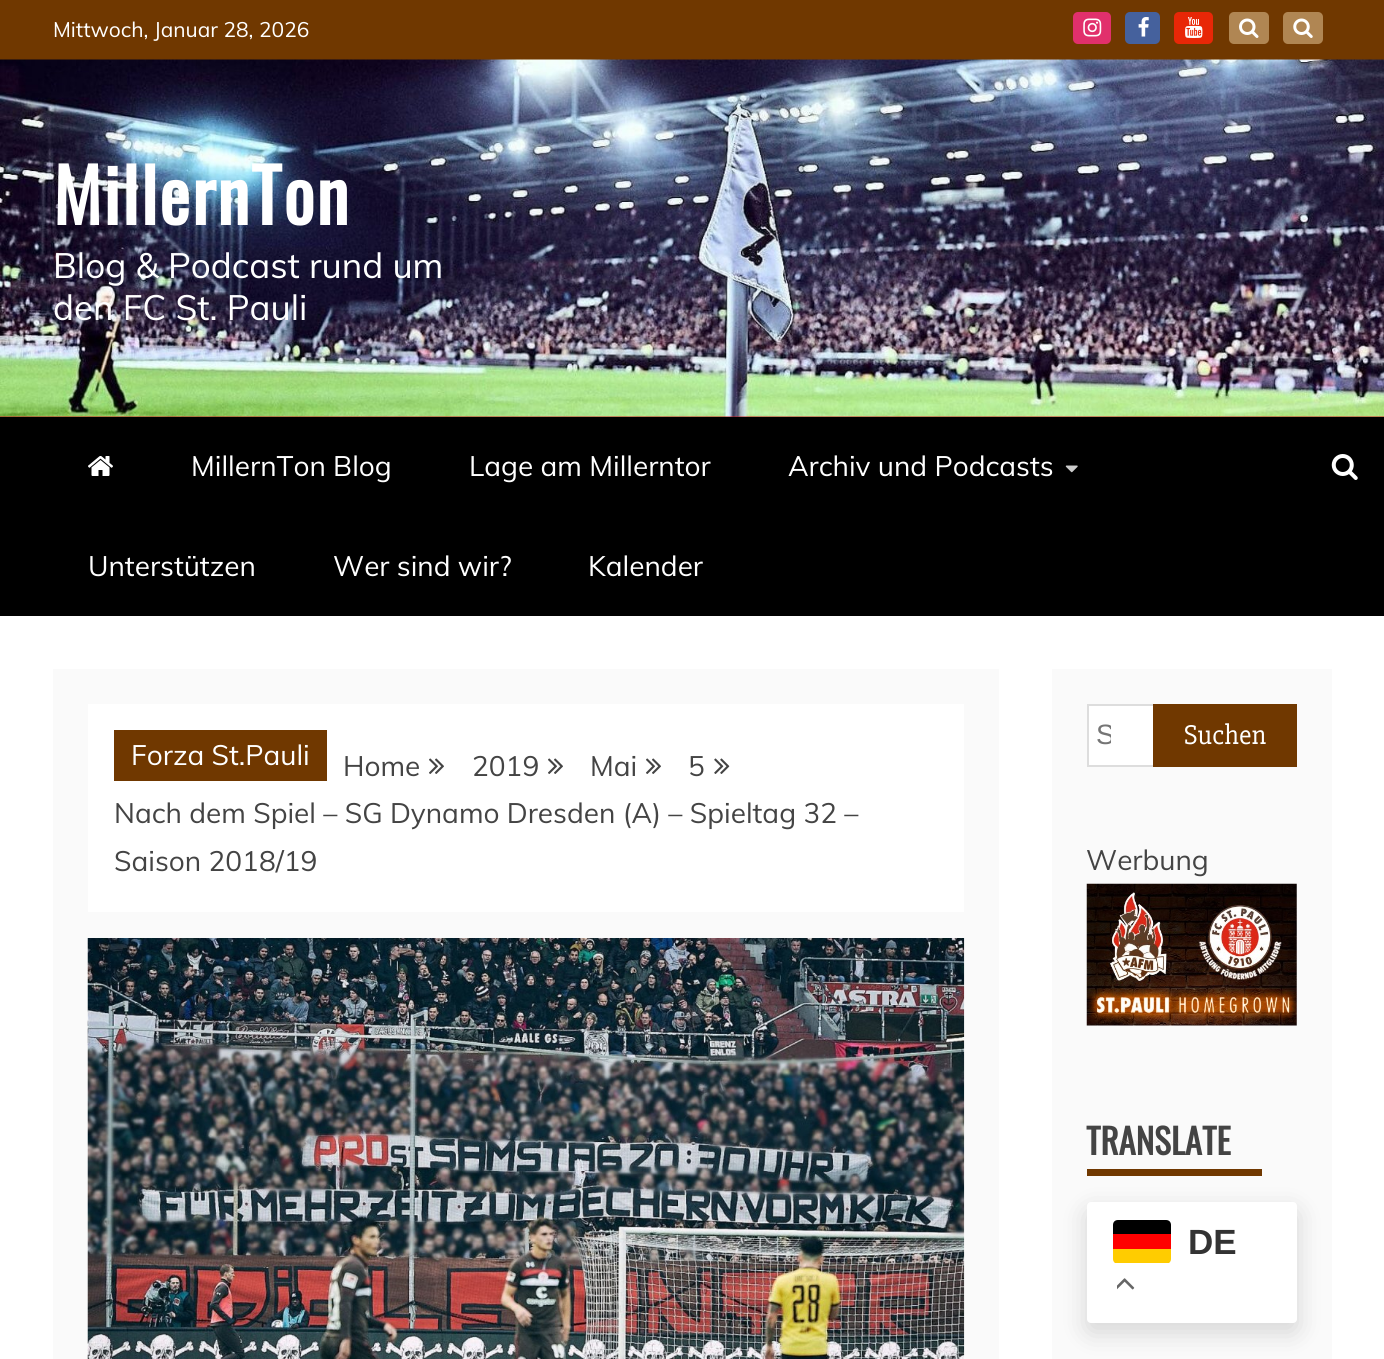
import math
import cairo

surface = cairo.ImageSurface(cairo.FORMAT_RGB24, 1384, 1359)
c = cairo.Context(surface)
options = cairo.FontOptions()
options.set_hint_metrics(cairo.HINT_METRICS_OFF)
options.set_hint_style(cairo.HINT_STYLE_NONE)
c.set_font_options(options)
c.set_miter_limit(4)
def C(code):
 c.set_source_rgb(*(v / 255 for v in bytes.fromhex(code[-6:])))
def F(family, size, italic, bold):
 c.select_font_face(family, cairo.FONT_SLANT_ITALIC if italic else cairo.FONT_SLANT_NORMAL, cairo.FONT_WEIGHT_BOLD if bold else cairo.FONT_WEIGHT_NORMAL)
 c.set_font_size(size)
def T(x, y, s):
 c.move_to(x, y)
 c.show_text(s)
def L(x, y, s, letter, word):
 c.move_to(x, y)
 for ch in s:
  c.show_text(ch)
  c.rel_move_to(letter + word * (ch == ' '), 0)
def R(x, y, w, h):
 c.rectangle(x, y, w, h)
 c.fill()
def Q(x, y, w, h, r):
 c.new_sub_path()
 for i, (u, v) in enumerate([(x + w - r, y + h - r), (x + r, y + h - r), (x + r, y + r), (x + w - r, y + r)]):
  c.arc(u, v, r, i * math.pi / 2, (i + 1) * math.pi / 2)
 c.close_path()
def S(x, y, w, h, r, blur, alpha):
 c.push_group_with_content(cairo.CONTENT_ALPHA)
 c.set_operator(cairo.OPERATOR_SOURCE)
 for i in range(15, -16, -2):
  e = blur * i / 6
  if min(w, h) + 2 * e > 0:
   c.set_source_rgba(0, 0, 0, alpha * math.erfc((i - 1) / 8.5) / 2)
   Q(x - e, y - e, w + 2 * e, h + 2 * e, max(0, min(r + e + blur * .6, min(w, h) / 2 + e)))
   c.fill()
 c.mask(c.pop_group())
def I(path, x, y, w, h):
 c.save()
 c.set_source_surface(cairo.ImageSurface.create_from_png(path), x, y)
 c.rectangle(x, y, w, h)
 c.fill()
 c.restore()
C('ffffff')
c.paint()
C('703800')
R(0,0,1384,60)
F('Muli',21,0,0)
C('ffffff')
T(53,37,'Mittwoch, Januar 28, 2026')
C('e1306c')
Q(1073,12,38,32,5)
c.fill()
I('1.png',1083,18,19,19)
C('45619d')
Q(1125,12,35,32,5)
c.fill()
I('2.png',1138,17,11,20)
C('e82707')
Q(1174,12,39,32,5)
c.fill()
I('3.png',1185,17,18,21)
C('b08653')
Q(1229,12,40,32,5)
c.fill()
I('4.png',1239,18,20,20)
Q(1283,12,40,32,5)
c.fill()
I('5.png',1293,18,20,20)
C('cc2222')
R(0,416,1384,1)
I('6.png',0,59,1384,358)
F('Oswald',73.5,0,1)
C('ffffff')
L(53,225,'MillernTon',1.75,0)
F('Muli',35,0,0)
T(53,278,'Blog & Podcast rund um')
T(53,320,'den FC St. Pauli')
C('000000')
R(0,417,1384,199)
I('7.png',88,456,25,20)
F('Muli',28,0,0)
C('ffffff')
T(191,476,'MillernTon Blog')
T(469,476,'Lage am Millerntor')
T(788,476,'Archiv und Podcasts')
I('8.png',1065,465,13,8)
T(88,576,'Unterstützen')
T(333,576,'Wer sind wir?')
T(588,576,'Kalender')
I('9.png',1331,454,27,26)
C('fafafa')
R(53,669,946,690)
C('ffffff')
R(88,704,876,208)
C('703800')
R(114,730,213,51)
C('ffffff')
T(131,765,'Forza St.Pauli')
C('444444')
T(343,776,'Home')
I('10.png',429,758,15,16)
T(472,776,'2019')
I('10.png',548,758,15,16)
T(590,776,'Mai')
I('10.png',646,758,15,16)
T(688,776,'5')
I('11.png',714,758,16,16)
T(114,823,'Nach dem Spiel – SG Dynamo Dresden (A) – Spieltag 32 –')
T(114,871,'Saison 2018/19')
I('12.png',87,938,878,421)
C('fafafa')
R(1052,669,280,690)
C('ffffff')
R(1089,706,64,59)
c.rectangle(1088,705,208,61)
C('dddddd')
c.stroke()
c.save()
c.rectangle(1097,719,14,32)
c.clip()
F('Liberation Sans',28,0,0)
C('757575')
T(1096,744,'S')
c.restore()
C('703800')
R(1153,704,144,63)
F('Slabo 27px',28,0,0)
C('ffffff')
T(1184,744,'Suchen')
F('Muli',28,0,0)
C('444444')
T(1086,870,'Werbung')
I('13.png',1086,883,211,143)
F('Oswald',35,0,1)
T(1086,1155,'TRANSLATE')
C('000000')
S(1087,1211,210,121,4,13,.15)
C('703800')
R(1087,1169,175,7)
C('ffffff')
Q(1087,1202,210,121,4)
c.fill()
c.save()
Q(1113,1220,58,44,5)
c.clip()
C('ffcc00')
R(1113,1249,58,14)
c.restore()
C('000000')
c.new_path()
c.move_to(1118,1220)
c.line_to(1166,1220)
c.curve_to(1169,1220,1171,1222,1171,1225)
c.line_to(1171,1234)
c.line_to(1113,1234)
c.line_to(1113,1225)
c.curve_to(1113,1222,1115,1220,1118,1220)
c.close_path()
c.fill()
C('ff0000')
R(1113,1234,58,15)
F('Liberation Sans',35,0,1)
C('333333')
T(1188,1254,'DE')
I('14.png',1117,1278,18,12)
surface.write_to_png('o.png')
